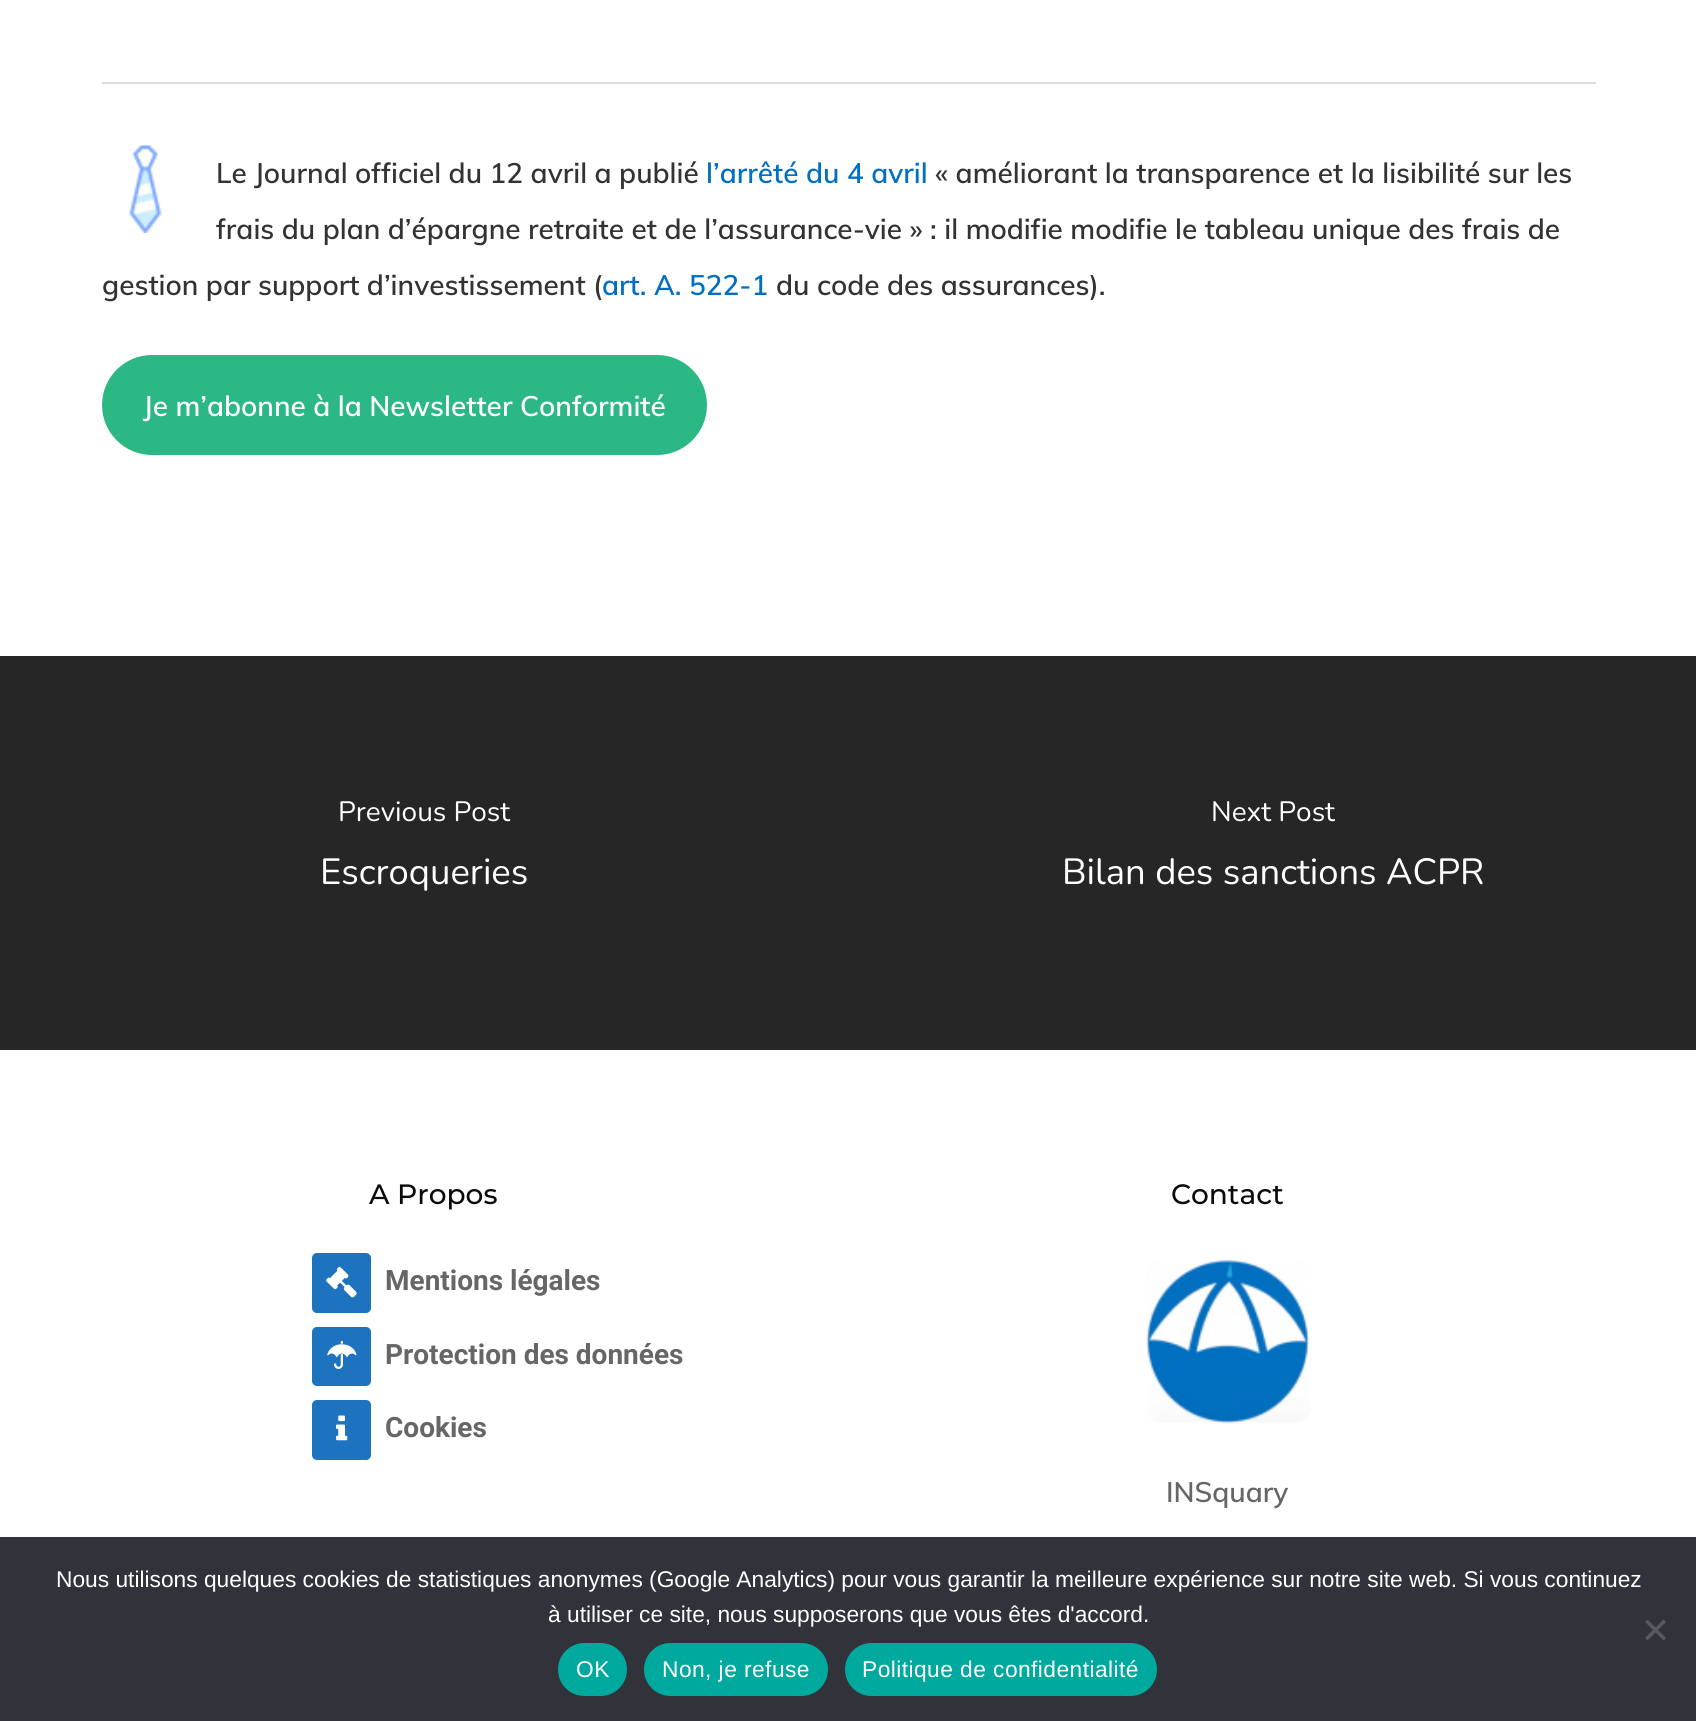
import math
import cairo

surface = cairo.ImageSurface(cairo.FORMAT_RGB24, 1696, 1721)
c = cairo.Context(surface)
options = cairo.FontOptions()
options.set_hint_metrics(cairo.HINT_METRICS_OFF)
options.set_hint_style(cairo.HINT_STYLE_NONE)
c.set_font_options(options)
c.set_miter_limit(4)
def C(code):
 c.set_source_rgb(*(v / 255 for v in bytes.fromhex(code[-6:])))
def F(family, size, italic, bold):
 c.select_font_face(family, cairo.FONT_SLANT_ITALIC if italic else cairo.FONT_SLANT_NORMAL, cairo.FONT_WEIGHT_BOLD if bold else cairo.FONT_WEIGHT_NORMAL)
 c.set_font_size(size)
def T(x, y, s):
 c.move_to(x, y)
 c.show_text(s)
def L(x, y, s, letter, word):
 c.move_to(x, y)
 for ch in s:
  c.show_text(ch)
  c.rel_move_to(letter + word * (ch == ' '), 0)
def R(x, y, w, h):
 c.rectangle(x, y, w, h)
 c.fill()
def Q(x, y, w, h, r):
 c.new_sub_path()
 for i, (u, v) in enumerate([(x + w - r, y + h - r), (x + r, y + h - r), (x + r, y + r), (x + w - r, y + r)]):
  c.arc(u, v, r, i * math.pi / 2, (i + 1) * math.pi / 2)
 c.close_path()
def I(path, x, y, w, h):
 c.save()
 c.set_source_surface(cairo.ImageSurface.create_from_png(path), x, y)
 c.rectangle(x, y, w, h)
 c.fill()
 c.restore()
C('ffffff')
c.paint()
C('dddddd')
R(102,82,1494,2)
I('1.png',129,145,33,88)
F('Muli SemiBold',28,0,0)
C('333333')
T(216,183,'Le Journal officiel du 12 avril a publié')
C('026fc0')
T(706,183,'l’arrêté du 4 avril')
C('333333')
T(935,183,'« améliorant la transparence et la lisibilité sur les')
T(216,239,'frais du plan d’épargne retraite et de l’assurance-vie » : il modifie modifie le tableau unique des frais de')
T(102,295,'gestion par support d’investissement (')
C('026fc0')
T(602,295,'art. A. 522-1')
C('333333')
T(776,295,'du code des assurances).')
C('2cb885')
Q(102,355,605,100,50)
c.fill()
C('ffffff')
T(143,416,'Je m’abonne à la Newsletter Conformité')
C('262626')
R(0,656,1696,394)
F('Nunito',28,0,0)
C('ffffff')
T(338,821,'Previous Post')
F('Nunito',36.4,0,0)
T(320,884,'Escroqueries')
F('Nunito',28,0,0)
T(1211,821,'Next Post')
F('Nunito',36.4,0,0)
T(1062,884,'Bilan des sanctions ACPR')
F('Montserrat Thin',28,0,0)
C('0a0a0a')
T(369,1204,'A Propos')
C('1e73be')
Q(312,1253,59,60,5)
c.fill()
I('2.png',326,1267,31,31)
F('Roboto',28,0,1)
C('666666')
T(385,1290,'Mentions légales')
C('1e73be')
Q(312,1327,59,59,5)
c.fill()
I('3.png',327,1340,30,29)
C('666666')
T(385,1364,'Protection des données')
C('1e73be')
Q(312,1400,59,60,5)
c.fill()
I('4.png',336,1415,12,26)
C('666666')
T(385,1437,'Cookies')
F('Montserrat Thin',28,0,0)
C('0a0a0a')
T(1171,1204,'Contact')
I('5.png',1146,1259,165,165)
F('Muli SemiBold',28,0,0)
C('666666')
T(1166,1502,'INSquary')
C('32323a')
R(0,1537,1696,184)
F('Liberation Sans',22.75,0,0)
C('ffffff')
T(56,1587,'Nous utilisons quelques cookies de statistiques anonymes (Google Analytics) pour vous garantir la meilleure expérience sur notre site web. Si vous continuez')
T(548,1622,'à utiliser ce site, nous supposerons que vous êtes d\'accord.')
C('59595d')
c.new_path()
c.move_to(1663.5,1619.5)
c.line_to(1666,1622)
c.line_to(1647.5,1640.5)
c.line_to(1645,1638)
c.close_path()
c.fill()
c.new_path()
c.move_to(1645,1622)
c.line_to(1647.5,1619.5)
c.line_to(1666,1638)
c.line_to(1663.5,1640.5)
c.close_path()
c.fill()
C('00a99d')
Q(558,1643,69,53,26.5)
c.fill()
C('ffffff')
L(576,1677,'OK',.45,0)
C('00a99d')
Q(644,1643,184,53,26.5)
c.fill()
C('ffffff')
L(662,1677,'Non, je refuse',.45,0)
C('00a99d')
Q(845,1643,312,53,26.5)
c.fill()
C('ffffff')
L(862,1677,'Politique de confidentialité',.45,0)
surface.write_to_png('o.png')
